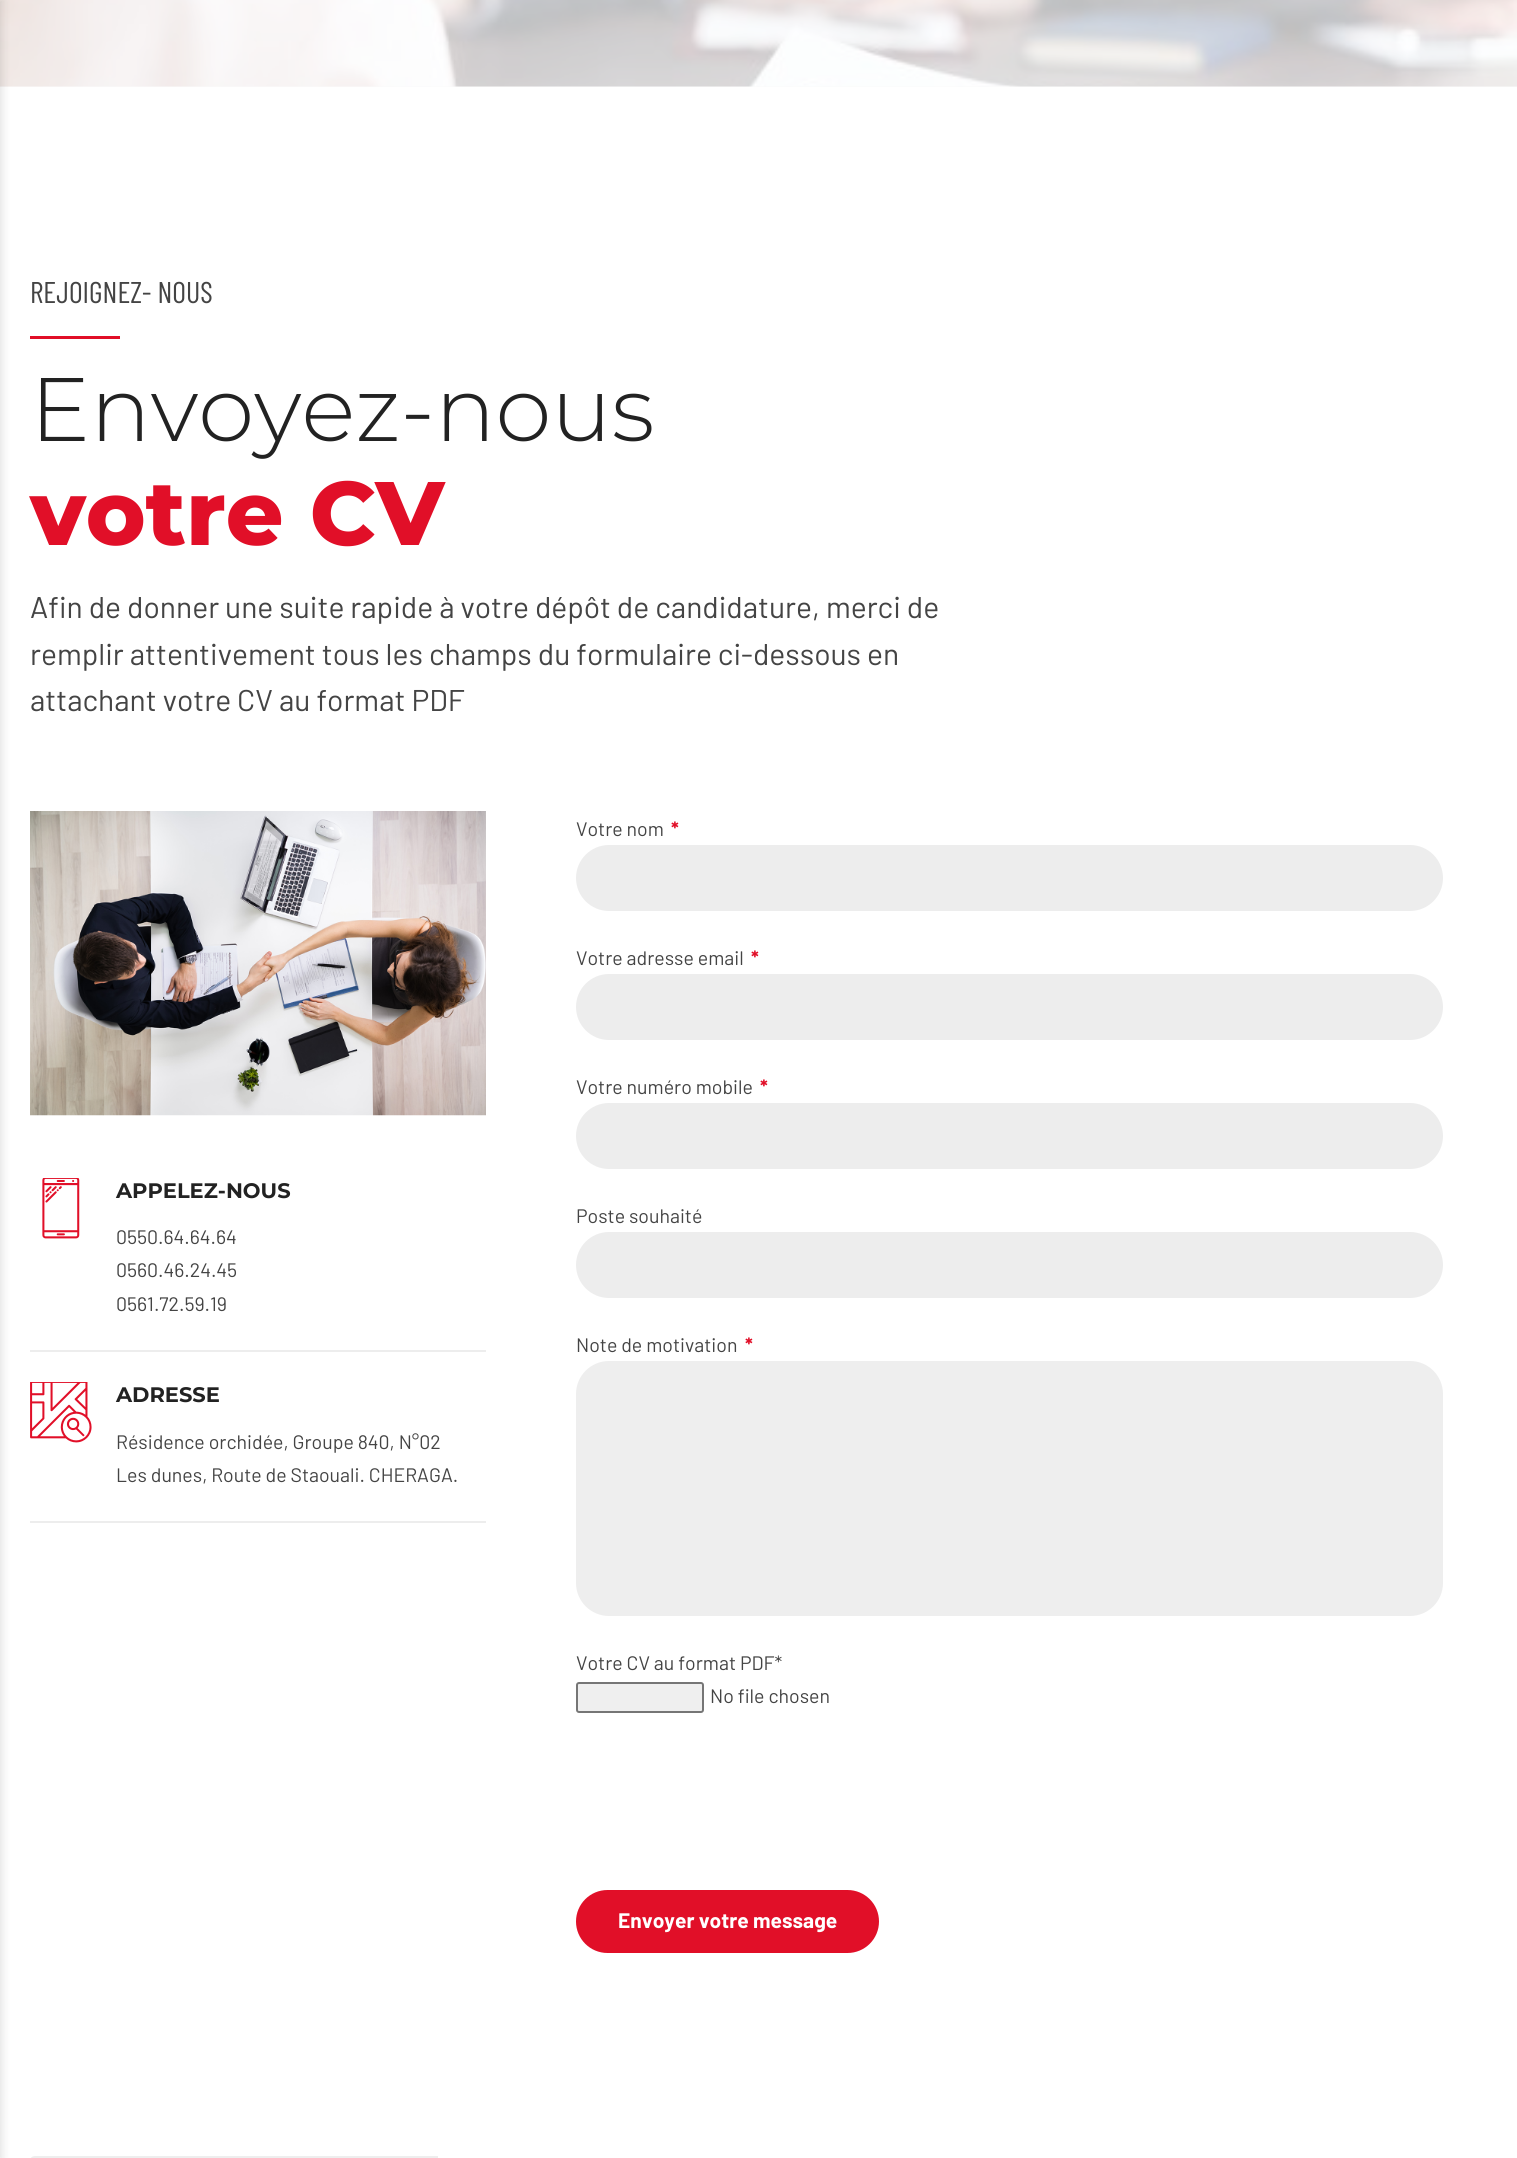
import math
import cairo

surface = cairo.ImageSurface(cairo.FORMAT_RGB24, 1517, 2158)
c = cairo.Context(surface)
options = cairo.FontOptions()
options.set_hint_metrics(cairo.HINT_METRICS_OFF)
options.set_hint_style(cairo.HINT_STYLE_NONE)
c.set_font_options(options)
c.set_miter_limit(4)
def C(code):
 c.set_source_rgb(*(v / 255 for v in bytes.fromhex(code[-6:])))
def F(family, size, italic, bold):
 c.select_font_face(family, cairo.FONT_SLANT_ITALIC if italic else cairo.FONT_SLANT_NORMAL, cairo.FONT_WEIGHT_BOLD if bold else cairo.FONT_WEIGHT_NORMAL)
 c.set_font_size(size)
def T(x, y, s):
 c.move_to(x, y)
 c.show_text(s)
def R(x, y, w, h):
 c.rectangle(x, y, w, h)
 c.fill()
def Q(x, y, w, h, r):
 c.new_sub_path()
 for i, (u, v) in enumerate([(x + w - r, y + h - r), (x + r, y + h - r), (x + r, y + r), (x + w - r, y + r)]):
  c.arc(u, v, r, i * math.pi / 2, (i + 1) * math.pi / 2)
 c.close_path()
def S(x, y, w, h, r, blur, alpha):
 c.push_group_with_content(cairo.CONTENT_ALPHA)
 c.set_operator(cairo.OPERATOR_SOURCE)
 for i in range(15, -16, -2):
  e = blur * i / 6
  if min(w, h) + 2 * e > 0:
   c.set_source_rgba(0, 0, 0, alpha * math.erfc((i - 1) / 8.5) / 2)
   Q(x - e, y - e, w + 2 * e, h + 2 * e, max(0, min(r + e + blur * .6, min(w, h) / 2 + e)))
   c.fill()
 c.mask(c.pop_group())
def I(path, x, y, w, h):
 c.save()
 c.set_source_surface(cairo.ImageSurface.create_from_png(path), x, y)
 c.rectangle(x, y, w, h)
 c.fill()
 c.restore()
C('ffffff')
c.paint()
C('fbfbfb')
R(0,86,1517,1)
I('1.png',0,0,1517,87)
C('000000')
S(-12,0,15,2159,0,4,.1)
F('Barlow Condensed',30,0,0)
C('444444')
T(30,303,'REJOIGNEZ- NOUS')
C('e10f28')
R(30,336,90,3)
F('Montserrat Light',90,0,0)
C('222222')
T(30,441,'Envoyez-nous')
F('Montserrat ExtraBold',90,0,0)
C('e10f28')
T(30,545,'votre CV')
F('Barlow',30,0,0)
C('444444')
T(30,618,'Afin de donner une suite rapide à votre dépôt de candidature, merci de')
T(30,665,'remplir attentivement tous les champs du formulaire ci-dessous en')
T(30,711,'attachant votre CV au format PDF')
I('2.png',30,811,456,305)
I('3.png',42,1178,38,61)
F('Montserrat',21,0,1)
C('222222')
T(116,1198,'APPELEZ-NOUS')
F('Barlow',19.5,0,0)
C('444444')
T(116,1244,'0550.64.64.64')
T(116,1277,'0560.46.24.45')
T(116,1311,'0561.72.59.19')
C('ededed')
R(30,1350,456,2)
I('4.png',30,1382,62,61)
F('Montserrat',21,0,1)
C('222222')
T(116,1402,'ADRESSE')
F('Barlow',19.5,0,0)
C('444444')
T(116,1449,'Résidence orchidée, Groupe 840, N°02')
T(116,1482,'Les dunes, Route de Staouali. CHERAGA.')
C('ededed')
R(30,1521,456,2)
C('444444')
T(576,836,'Votre nom')
F('Barlow',19.5,0,1)
C('e10f28')
T(671,836,'*')
C('ededed')
Q(576,845,867,66,33)
c.fill()
F('Barlow',19.5,0,0)
C('444444')
T(576,965,'Votre adresse email')
F('Barlow',19.5,0,1)
C('e10f28')
T(751,965,'*')
C('ededed')
Q(576,974,867,66,33)
c.fill()
F('Barlow',19.5,0,0)
C('444444')
T(576,1094,'Votre numéro mobile')
F('Barlow',19.5,0,1)
C('e10f28')
T(760,1094,'*')
C('ededed')
Q(576,1103,867,66,33)
c.fill()
F('Barlow',19.5,0,0)
C('444444')
T(576,1223,'Poste souhaité')
C('ededed')
Q(576,1232,867,66,33)
c.fill()
C('444444')
T(576,1352,'Note de motivation')
F('Barlow',19.5,0,1)
C('e10f28')
T(745,1352,'*')
C('eeeeee')
Q(576,1361,867,255,33)
c.fill()
F('Barlow',19.5,0,0)
C('444444')
T(576,1670,'Votre CV au format PDF*')
C('efefef')
Q(577,1683,126,29,2)
c.fill_preserve()
C('767676')
c.stroke()
C('444444')
T(710,1703,'No file chosen')
C('e10f28')
Q(576,1890,303,63,31.5)
c.fill()
F('Barlow',21,0,1)
C('ffffff')
T(618,1928,'Envoyer votre message')
C('eeeeee')
c.new_path()
c.move_to(35,2156)
c.line_to(438,2156)
c.line_to(438,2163)
c.line_to(35,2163)
c.curve_to(32,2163,30,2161,30,2158)
c.line_to(30,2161)
c.curve_to(30,2158,32,2156,35,2156)
c.close_path()
c.fill()
surface.write_to_png('o.png')
